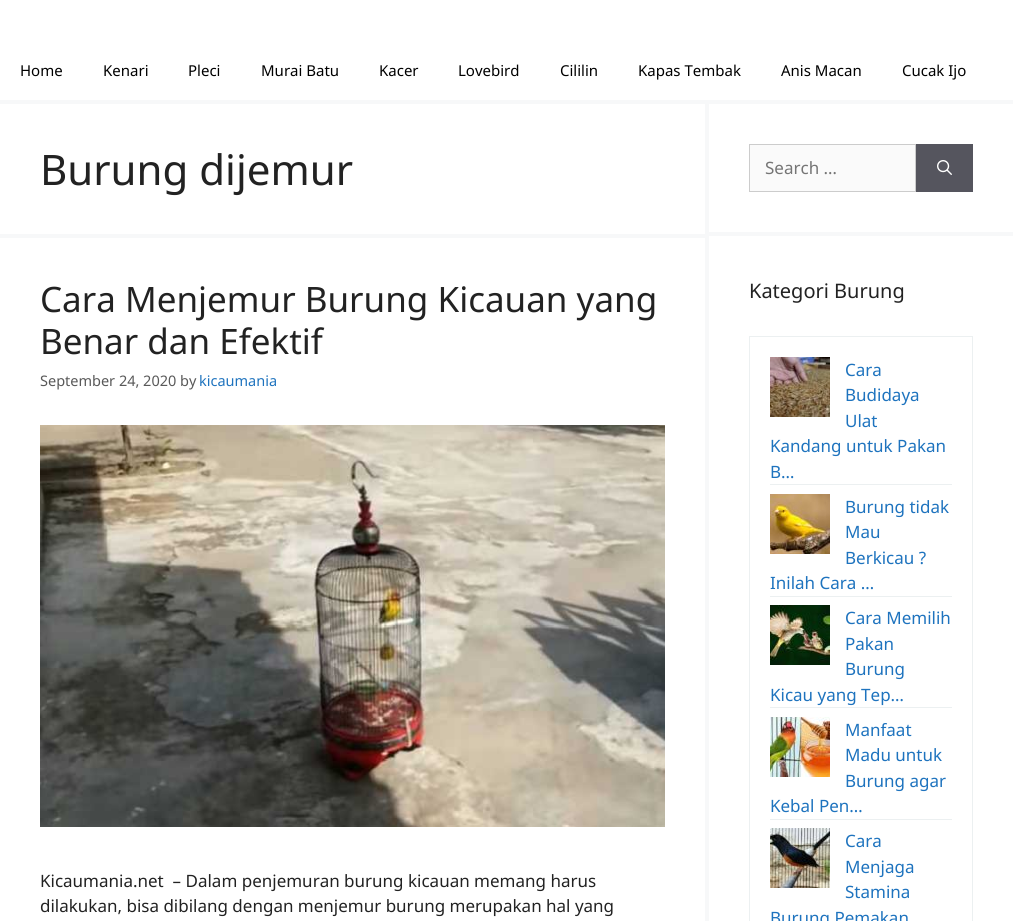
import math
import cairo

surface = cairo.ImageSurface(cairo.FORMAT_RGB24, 1013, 921)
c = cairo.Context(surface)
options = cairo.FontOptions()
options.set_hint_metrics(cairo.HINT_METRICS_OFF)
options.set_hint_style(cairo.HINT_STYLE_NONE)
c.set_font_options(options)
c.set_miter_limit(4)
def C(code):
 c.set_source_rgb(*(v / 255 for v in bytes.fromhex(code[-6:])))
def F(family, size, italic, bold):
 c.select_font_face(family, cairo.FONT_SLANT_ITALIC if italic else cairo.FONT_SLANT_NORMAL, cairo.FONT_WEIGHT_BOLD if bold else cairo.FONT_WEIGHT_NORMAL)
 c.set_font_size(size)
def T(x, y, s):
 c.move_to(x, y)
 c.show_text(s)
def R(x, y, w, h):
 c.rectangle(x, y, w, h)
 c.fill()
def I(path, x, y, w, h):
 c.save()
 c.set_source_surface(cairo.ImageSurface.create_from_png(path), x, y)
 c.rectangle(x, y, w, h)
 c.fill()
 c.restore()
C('f7f8f9')
c.paint()
C('ffffff')
R(0,0,1013,100)
F('Noto Sans',15,0,0)
C('000000')
T(20,76,'Home')
T(103,76,'Kenari')
T(188,76,'Pleci')
T(261,76,'Murai Batu')
T(379,76,'Kacer')
T(458,76,'Lovebird')
T(560,76,'Cililin')
T(638,76,'Kapas Tembak')
T(781,76,'Anis Macan')
T(902,76,'Cucak Ijo')
C('ffffff')
R(0,104,705,130)
F('Noto Sans',42,0,0)
C('222222')
T(40,185,'Burung dijemur')
C('ffffff')
R(0,238,705,683)
F('Noto Sans',35,0,0)
C('222222')
T(40,312,'Cara Menjemur Burung Kicauan yang')
T(40,354,'Benar dan Efektif')
F('Noto Sans',14.5,0,0)
C('595959')
T(40,386,'September 24, 2020 by')
C('1e73be')
T(199,386,'kicaumania')
I('1.png',40,425,625,402)
F('Noto Sans',17,0,0)
C('222222')
T(40,887,'Kicaumania.net  – Dalam penjemuran burung kicauan memang harus')
T(40,912,'dilakukan, bisa dibilang dengan menjemur burung merupakan hal yang')
C('ffffff')
R(709,104,304,128)
C('fafafa')
c.rectangle(749.5,144.5,166,47)
c.fill_preserve()
C('cccccc')
c.set_line_width(1)
c.stroke()
C('757575')
T(765,174,'Search …')
C('55555e')
R(916,144,57,48)
I('2.png',937,160,15,15)
C('ffffff')
R(709,236,304,685)
F('Noto Sans',20,0,0)
C('222222')
T(749,298,'Kategori Burung')
c.rectangle(749.5,336.5,223,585)
C('ecf0f1')
c.stroke()
R(770,484,182,1)
I('3.png',770,357,60,60)
F('Noto Sans',17,0,0)
C('1e73be')
T(845,376,'Cara')
T(845,401,'Budidaya')
T(845,427,'Ulat')
T(770,452,'Kandang untuk Pakan')
T(770,478,'B…')
C('ecf0f1')
R(770,596,182,1)
I('4.png',770,494,60,60)
C('1e73be')
T(845,513,'Burung tidak')
T(845,538,'Mau')
T(845,564,'Berkicau ?')
T(770,589,'Inilah Cara …')
C('ecf0f1')
R(770,707,182,1)
I('5.png',770,605,60,60)
C('1e73be')
T(845,624,'Cara Memilih')
T(845,650,'Pakan')
T(845,675,'Burung')
T(770,701,'Kicau yang Tep…')
C('ecf0f1')
R(770,819,182,1)
I('6.png',770,717,60,60)
C('1e73be')
T(845,736,'Manfaat')
T(845,761,'Madu untuk')
T(845,787,'Burung agar')
T(770,812,'Kebal Pen…')
I('7.png',770,828,60,60)
T(845,847,'Cara')
T(845,873,'Menjaga')
T(845,898,'Stamina')
T(770,924,'Burung Pemakan')
surface.write_to_png('o.png')
